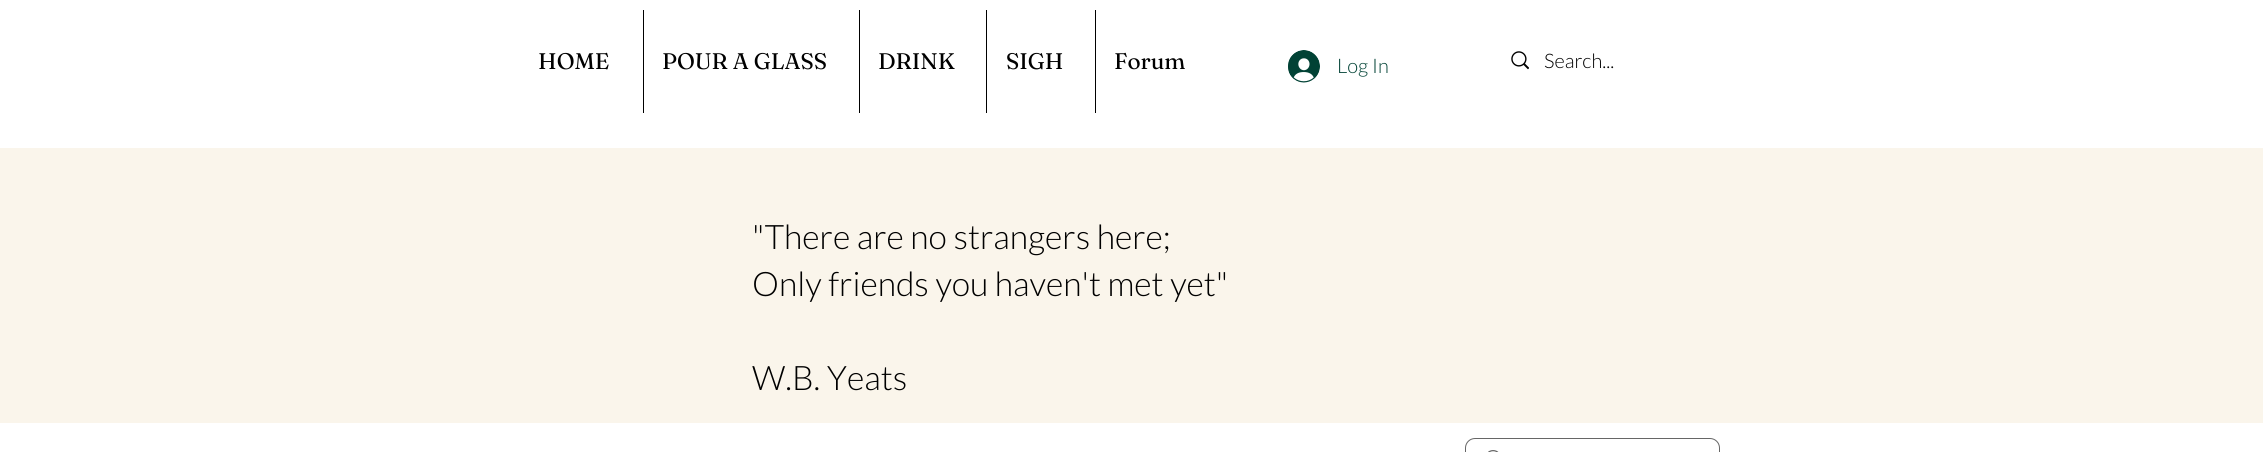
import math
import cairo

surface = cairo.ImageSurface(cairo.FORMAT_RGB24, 2263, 452)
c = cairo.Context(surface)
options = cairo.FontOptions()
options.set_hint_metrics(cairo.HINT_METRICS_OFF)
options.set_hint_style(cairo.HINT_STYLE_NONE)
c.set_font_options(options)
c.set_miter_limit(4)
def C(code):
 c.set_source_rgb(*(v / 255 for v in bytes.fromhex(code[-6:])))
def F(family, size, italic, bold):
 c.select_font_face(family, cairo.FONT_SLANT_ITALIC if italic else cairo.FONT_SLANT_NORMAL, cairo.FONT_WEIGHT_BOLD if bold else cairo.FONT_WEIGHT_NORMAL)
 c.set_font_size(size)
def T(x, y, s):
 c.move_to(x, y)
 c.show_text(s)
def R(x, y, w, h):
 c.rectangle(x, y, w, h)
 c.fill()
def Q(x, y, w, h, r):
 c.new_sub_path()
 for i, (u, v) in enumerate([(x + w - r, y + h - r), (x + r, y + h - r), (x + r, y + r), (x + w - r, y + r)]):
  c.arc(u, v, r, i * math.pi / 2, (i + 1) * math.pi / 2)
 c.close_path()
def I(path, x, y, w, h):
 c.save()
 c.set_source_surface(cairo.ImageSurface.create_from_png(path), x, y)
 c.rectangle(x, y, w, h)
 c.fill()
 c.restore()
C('ffffff')
c.paint()
F('Fraunces',22.5,0,0)
C('000000')
T(538,69,'HOME')
R(643,10,1,103)
T(662,69,'POUR A GLASS')
R(859,10,1,103)
T(878,69,'DRINK')
R(986,10,1,103)
T(1006,69,'SIGH')
R(1095,10,1,103)
T(1114,69,'Forum')
I('1.png',1288,50,32,33)
F('Lato Light',20,0,0)
C('014235')
T(1337,73,'Log In')
I('2.png',1511,51,18,19)
C('000000')
T(1544,68,'Search...')
C('faf5eb')
R(0,148,2263,275)
F('Lato Light',33.75,0,0)
C('000000')
T(752,249,'"There are no strangers here;')
T(752,296,'Only friends you haven\'t met yet"')
T(752,390,'W.B. Yeats')
I('3.png',1488,450,11,2)
Q(1465.5,438.5,254,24,9.5)
C('666666')
c.set_line_width(1)
c.stroke()
surface.write_to_png('o.png')
